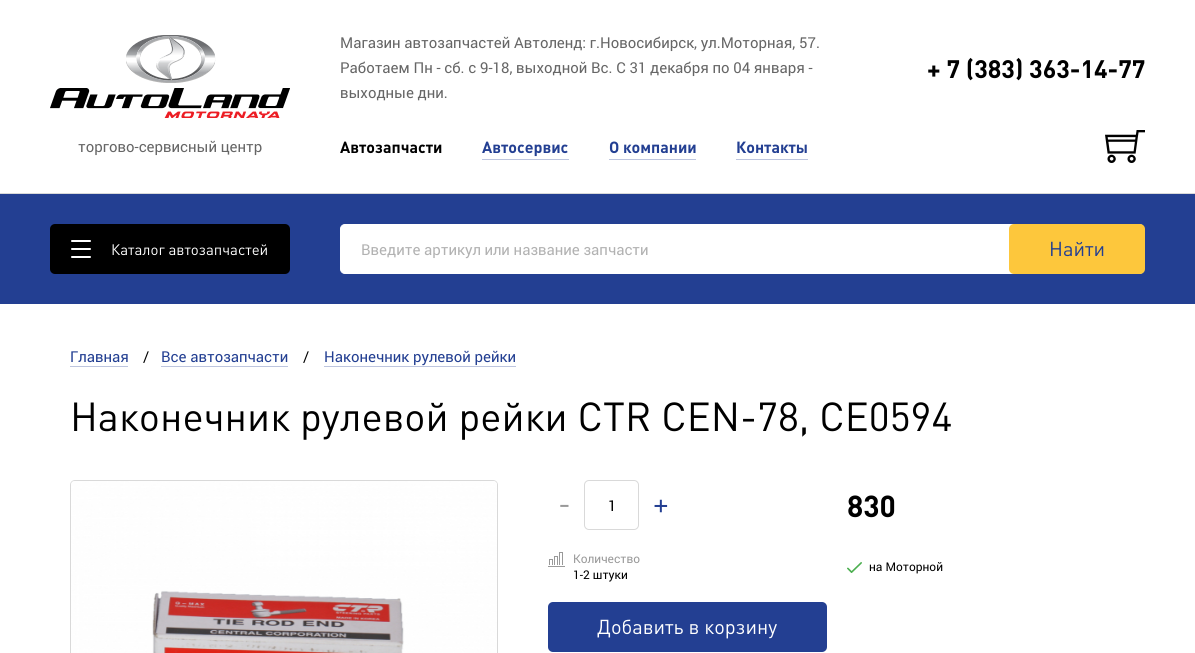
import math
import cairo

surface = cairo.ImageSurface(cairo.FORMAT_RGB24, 1195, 653)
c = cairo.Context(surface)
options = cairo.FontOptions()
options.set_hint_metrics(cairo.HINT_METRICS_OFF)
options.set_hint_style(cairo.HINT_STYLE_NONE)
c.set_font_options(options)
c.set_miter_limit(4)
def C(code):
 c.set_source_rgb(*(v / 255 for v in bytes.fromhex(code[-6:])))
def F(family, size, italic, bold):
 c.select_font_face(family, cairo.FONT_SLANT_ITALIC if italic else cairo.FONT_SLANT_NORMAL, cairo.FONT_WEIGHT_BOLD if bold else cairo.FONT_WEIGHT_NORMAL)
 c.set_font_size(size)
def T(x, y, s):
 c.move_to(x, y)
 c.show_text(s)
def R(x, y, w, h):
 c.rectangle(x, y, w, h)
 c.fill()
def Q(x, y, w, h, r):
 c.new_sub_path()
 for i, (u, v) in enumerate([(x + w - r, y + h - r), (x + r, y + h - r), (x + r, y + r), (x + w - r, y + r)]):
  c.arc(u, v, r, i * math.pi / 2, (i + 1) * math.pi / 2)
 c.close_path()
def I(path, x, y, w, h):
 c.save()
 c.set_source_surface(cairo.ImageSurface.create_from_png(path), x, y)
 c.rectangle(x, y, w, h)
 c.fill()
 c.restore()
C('ffffff')
c.paint()
C('d9d9d9')
R(0,193,1195,1)
I('1.png',50,35,240,83)
F('Roboto',15,0,0)
C('666666')
T(78,152,'торгово-сервисный центр')
T(340,48,'Магазин автозапчастей Автоленд: г.Новосибирск, ул.Моторная, 57.')
T(340,73,'Работаем Пн - сб. с 9-18, выходной Вс. С 31 декабря по 04 января -')
T(340,98,'выходные дни.')
F('DIN',25,0,1)
C('000000')
T(927,78,'+ 7 (383) 363-14-77')
F('DIN',16,0,1)
T(340,153,'Автозапчасти')
C('bdc5de')
R(482,159,87,1)
C('233f92')
T(482,153,'Автосервис')
C('bdc5de')
R(609,159,87,1)
C('233f92')
T(609,153,'О компании')
C('bdc5de')
R(736,159,72,1)
C('233f92')
T(736,153,'Контакты')
I('2.png',1105,130,40,33)
R(0,194,1195,110)
C('000000')
Q(50,224,240,50,5)
c.fill()
C('ffffff')
Q(71,248,20,2,1)
c.fill()
Q(71,240,20,2,1)
c.fill()
Q(71,256,20,2,1)
c.fill()
F('DIN',15,0,0)
T(111,255,'Каталог автозапчастей')
Q(340.5,224.5,803,49,4.5)
c.fill_preserve()
c.set_line_width(1)
c.stroke()
F('Roboto',15,0,0)
C('b2b2b2')
T(361,255,'Введите артикул или название запчасти')
C('fdc73c')
Q(1009,224,136,50,5)
c.fill()
F('DIN',20,0,0)
C('233f92')
T(1049,256,'Найти')
F('Roboto',15,0,0)
T(70,362,'Главная')
C('bdc5de')
R(70,366,58,1)
C('000000')
T(143,362,'/')
C('233f92')
T(161,362,'Все автозапчасти')
C('bdc5de')
R(161,366,127,1)
C('000000')
T(303,362,'/')
C('233f92')
T(324,362,'Наконечник рулевой рейки')
C('bdc5de')
R(324,366,192,1)
F('DIN',40,0,0)
C('000000')
T(70,431,'Наконечник рулевой рейки CTR CEN-78, CE0594')
Q(70.5,480.5,427,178,4.5)
C('d9d9d9')
c.stroke()
I('3.png',71,481,426,172)
F('DIN',30,0,0)
C('999999')
T(558,514,'-')
Q(584.5,480.5,54,49,4.5)
C('d9d9d9')
c.stroke()
F('Roboto',15,0,0)
C('000000')
T(608,511,'1')
F('DIN',30,0,0)
C('233f92')
T(653,514,'+')
F('DIN',30,0,1)
C('000000')
T(847,517,'830')
I('4.png',548,552,17,15)
F('Roboto',12,0,0)
C('999999')
T(573,563,'Количество')
C('000000')
T(573,579,'1-2 штуки')
I('5.png',847,562,15,11)
T(869,571,'на Моторной')
C('233f92')
Q(548,602,279,50,5)
c.fill()
F('DIN',20,0,0)
C('ffffff')
T(597,634,'Добавить в корзину')
surface.write_to_png('o.png')
